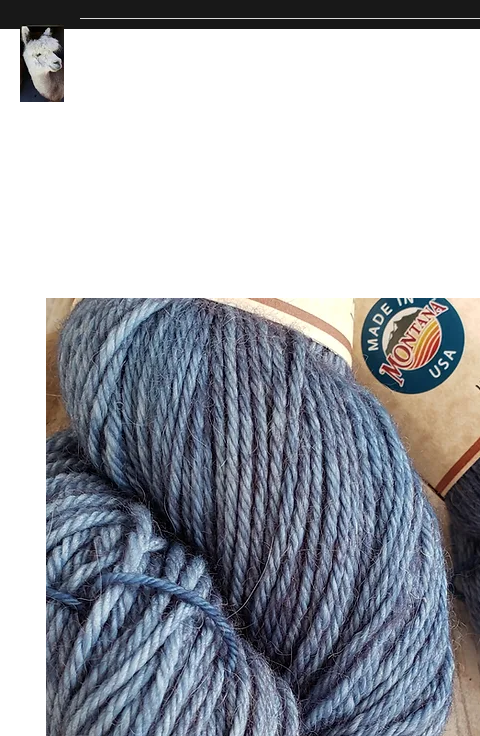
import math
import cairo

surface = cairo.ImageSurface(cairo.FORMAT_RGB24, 480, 736)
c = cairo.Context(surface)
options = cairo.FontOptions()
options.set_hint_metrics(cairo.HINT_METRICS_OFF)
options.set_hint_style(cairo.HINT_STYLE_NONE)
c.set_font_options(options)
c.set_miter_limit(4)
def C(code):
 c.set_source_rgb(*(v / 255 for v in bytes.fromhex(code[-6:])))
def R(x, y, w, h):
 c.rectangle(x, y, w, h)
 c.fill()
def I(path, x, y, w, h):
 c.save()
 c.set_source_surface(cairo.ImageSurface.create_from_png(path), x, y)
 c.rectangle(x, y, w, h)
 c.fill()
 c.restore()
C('ffffff')
c.paint()
C('181818')
R(0,0,480,29)
C('dcdcdc')
R(80,18,400,1)
I('1.png',20,24,44,78)
I('2.png',46,298,434,438)
surface.write_to_png('o.png')
